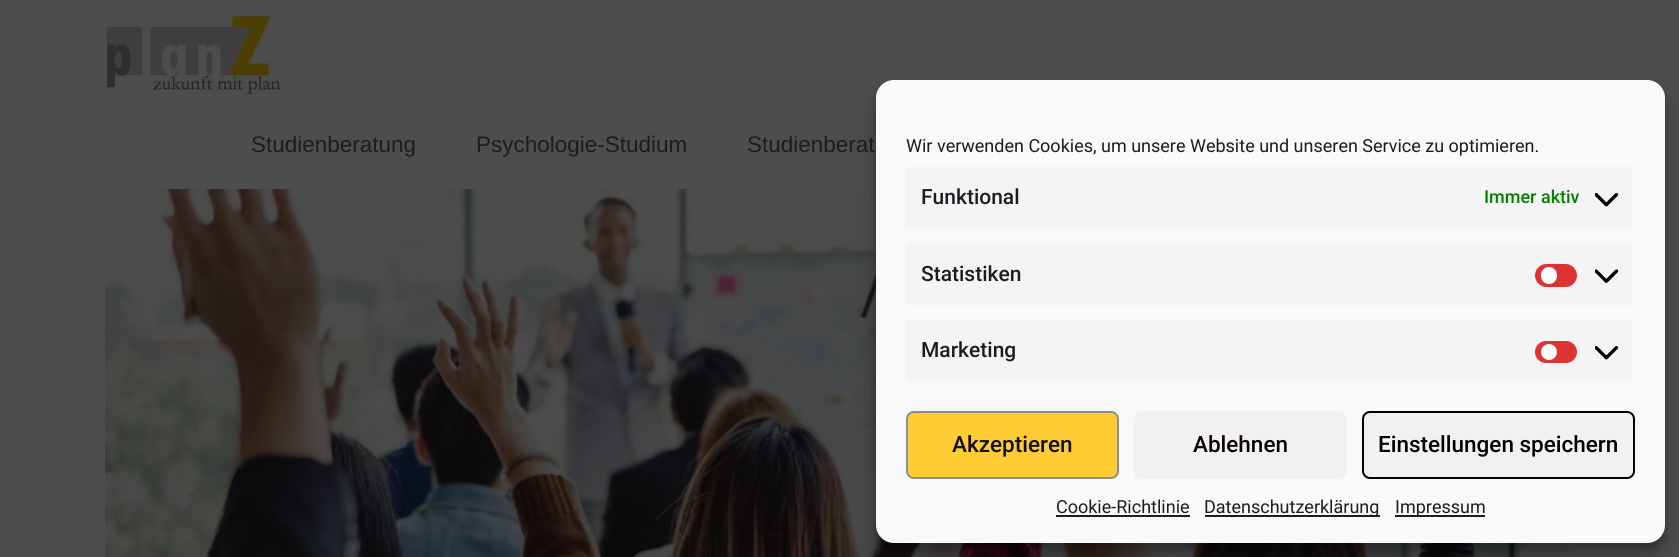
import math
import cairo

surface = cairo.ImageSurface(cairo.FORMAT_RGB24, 1679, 557)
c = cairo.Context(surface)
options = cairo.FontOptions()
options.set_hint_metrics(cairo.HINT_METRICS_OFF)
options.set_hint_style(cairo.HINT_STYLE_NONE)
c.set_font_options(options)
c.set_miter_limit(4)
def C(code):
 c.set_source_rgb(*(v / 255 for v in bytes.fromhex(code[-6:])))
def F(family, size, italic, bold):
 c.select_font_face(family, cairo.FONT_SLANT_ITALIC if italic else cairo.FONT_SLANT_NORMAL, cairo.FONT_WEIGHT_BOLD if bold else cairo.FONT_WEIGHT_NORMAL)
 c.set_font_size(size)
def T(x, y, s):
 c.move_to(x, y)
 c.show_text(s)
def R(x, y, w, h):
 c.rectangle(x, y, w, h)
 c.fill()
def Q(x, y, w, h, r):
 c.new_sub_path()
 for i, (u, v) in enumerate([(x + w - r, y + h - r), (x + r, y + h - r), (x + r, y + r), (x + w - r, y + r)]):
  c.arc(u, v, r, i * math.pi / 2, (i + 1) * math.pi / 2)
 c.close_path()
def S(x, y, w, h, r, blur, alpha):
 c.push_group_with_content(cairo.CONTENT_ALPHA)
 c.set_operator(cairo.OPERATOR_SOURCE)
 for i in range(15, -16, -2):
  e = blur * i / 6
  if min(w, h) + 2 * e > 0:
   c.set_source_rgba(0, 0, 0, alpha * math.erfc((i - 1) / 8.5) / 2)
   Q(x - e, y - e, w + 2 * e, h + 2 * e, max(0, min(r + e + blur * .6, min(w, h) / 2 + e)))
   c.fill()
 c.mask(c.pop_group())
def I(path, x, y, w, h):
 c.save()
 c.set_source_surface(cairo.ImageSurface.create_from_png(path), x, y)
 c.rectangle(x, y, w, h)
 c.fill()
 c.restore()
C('4d4d4d')
c.paint()
I('1.png',106,15,175,80)
F('Liberation Sans',22.5,0,0)
C('1d1d1d')
T(251,152,'Studienberatung')
T(476,152,'Psychologie-Studium')
T(747,152,'Studienberat')
I('4.png',105,189,1470,368)
C('000000')
S(876,89,789,463,18,4.5,.23)
S(876,95,789,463,18,15,.19)
C('f9f9f9')
Q(876,80,789,463,18)
c.fill()
F('Roboto',18,0,0)
C('191e23')
T(906,152,'Wir verwenden Cookies, um unsere Website und unseren Service zu optimieren.')
C('f4f4f4')
R(906,167,726,61)
F('Roboto Medium',21,0,0)
C('191e23')
T(921,204,'Funktional')
F('Roboto Medium',18,0,0)
C('008000')
T(1484,203,'Immer aktiv')
I('2.png',1595,193,24,14)
C('f4f4f4')
R(906,243,726,62)
F('Roboto Medium',21,0,0)
C('191e23')
T(921,281,'Statistiken')
C('dd3333')
Q(1535,264,42,23,11.5)
c.fill()
C('ffffff')
Q(1541,267,16,17,8)
c.fill()
I('3.png',1595,269,24,14)
C('f4f4f4')
R(906,320,726,61)
C('191e23')
T(921,357,'Marketing')
C('dd3333')
Q(1535,341,42,22,11)
c.fill()
C('ffffff')
c.arc(1549,352,8,0,2 * math.pi)
c.fill()
I('2.png',1595,346,24,14)
C('ffcc33')
Q(907,412,211,66,7)
c.fill_preserve()
C('8e8e8e')
c.stroke()
F('Roboto Medium',22.5,0,0)
C('0f0f0f')
T(952,452,'Akzeptieren')
C('f1f1f1')
Q(1134,411,213,68,8)
c.fill()
C('0a0101')
T(1193,452,'Ablehnen')
C('f1f1f1')
Q(1363,412,271,66,7)
c.fill_preserve()
C('000000')
c.stroke()
T(1378,452,'Einstellungen speichern')
F('Roboto',18,0,0)
C('191e23')
T(1056,513,'Cookie-Richtlinie')
R(1056,515,134,2)
R(1205,515,175,2)
T(1204,513,'Datenschutzerklärung')
R(1395,515,90,2)
T(1395,513,'Impressum')
surface.write_to_png('o.png')
